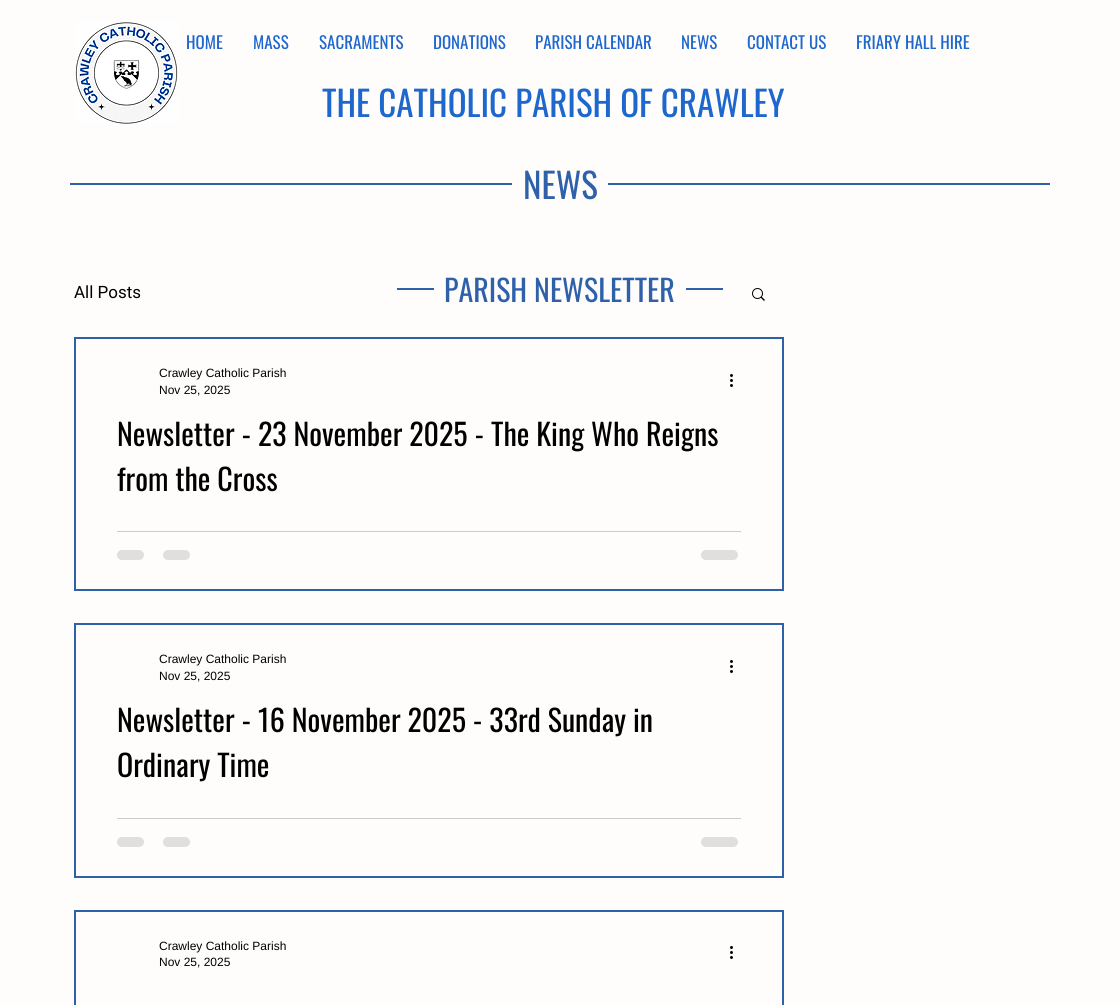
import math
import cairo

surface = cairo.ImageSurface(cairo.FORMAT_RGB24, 1120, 1005)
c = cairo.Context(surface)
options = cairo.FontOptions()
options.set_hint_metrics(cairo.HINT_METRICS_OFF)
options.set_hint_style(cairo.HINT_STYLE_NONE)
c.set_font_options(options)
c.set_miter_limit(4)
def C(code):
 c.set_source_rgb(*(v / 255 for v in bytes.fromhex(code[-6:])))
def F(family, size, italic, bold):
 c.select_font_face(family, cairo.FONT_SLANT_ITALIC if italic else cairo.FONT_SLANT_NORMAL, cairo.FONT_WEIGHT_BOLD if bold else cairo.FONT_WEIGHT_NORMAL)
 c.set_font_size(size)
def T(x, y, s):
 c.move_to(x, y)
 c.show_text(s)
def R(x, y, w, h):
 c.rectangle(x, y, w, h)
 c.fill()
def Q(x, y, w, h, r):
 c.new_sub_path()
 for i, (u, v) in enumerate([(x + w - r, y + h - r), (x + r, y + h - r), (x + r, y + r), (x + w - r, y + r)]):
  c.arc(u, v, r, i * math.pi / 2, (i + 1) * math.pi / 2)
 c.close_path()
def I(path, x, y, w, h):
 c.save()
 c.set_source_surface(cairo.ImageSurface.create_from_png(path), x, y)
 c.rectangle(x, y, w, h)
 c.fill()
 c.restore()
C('fffdfb')
c.paint()
F('Oswald',17,0,0)
C('1d67cd')
T(186,49,'HOME')
T(253,49,'MASS')
T(319,49,'SACRAMENTS')
T(433,49,'DONATIONS')
T(535,49,'PARISH CALENDAR')
T(681,49,'NEWS')
T(747,49,'CONTACT US')
T(856,49,'FRIARY HALL HIRE')
I('1.png',75,22,103,102)
F('Oswald',35,0,0)
T(322,117,'THE CATHOLIC PARISH OF CRAWLEY')
C('2f61ab')
R(70,183,442,2)
T(523,199,'NEWS')
R(608,183,442,2)
F('Oswald',30,0,0)
T(444,302,'PARISH NEWSLETTER')
F('Roboto',17,0,0)
C('000000')
T(74,298,'All Posts')
I('2.png',752,288,13,13)
c.rectangle(75,338,708,252)
C('2f61ab')
c.stroke()
F('Liberation Sans',12,0,0)
C('000000')
T(159,377,'Crawley Catholic Parish')
T(159,394,'Nov 25, 2025')
I('3.png',730,374,3,13)
F('Oswald',30,0,0)
T(117,446,'Newsletter - 23 November 2025 - The King Who Reigns')
T(117,491,'from the Cross')
C('cccac9')
R(117,531,624,1)
C('e0dfdd')
Q(117,550,27,10,5)
c.fill()
Q(163,550,27,10,5)
c.fill()
Q(701,550,37,10,5)
c.fill()
c.rectangle(75,624,708,253)
C('2f61ab')
c.stroke()
F('Liberation Sans',12,0,0)
C('000000')
T(159,663,'Crawley Catholic Parish')
T(159,680,'Nov 25, 2025')
I('3.png',730,660,3,13)
F('Oswald',30,0,0)
T(117,732,'Newsletter - 16 November 2025 - 33rd Sunday in')
T(117,777,'Ordinary Time')
C('cccac9')
R(117,818,624,1)
C('e0dfdd')
Q(117,837,27,10,5)
c.fill()
Q(163,837,27,10,5)
c.fill()
Q(701,837,37,10,5)
c.fill()
c.rectangle(75,911,708,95)
C('2f61ab')
c.stroke()
F('Liberation Sans',12,0,0)
C('000000')
T(159,950,'Crawley Catholic Parish')
T(159,966,'Nov 25, 2025')
I('3.png',730,946,3,13)
C('2f61ab')
R(397,288,37,2)
R(686,288,37,2)
surface.write_to_png('o.png')
